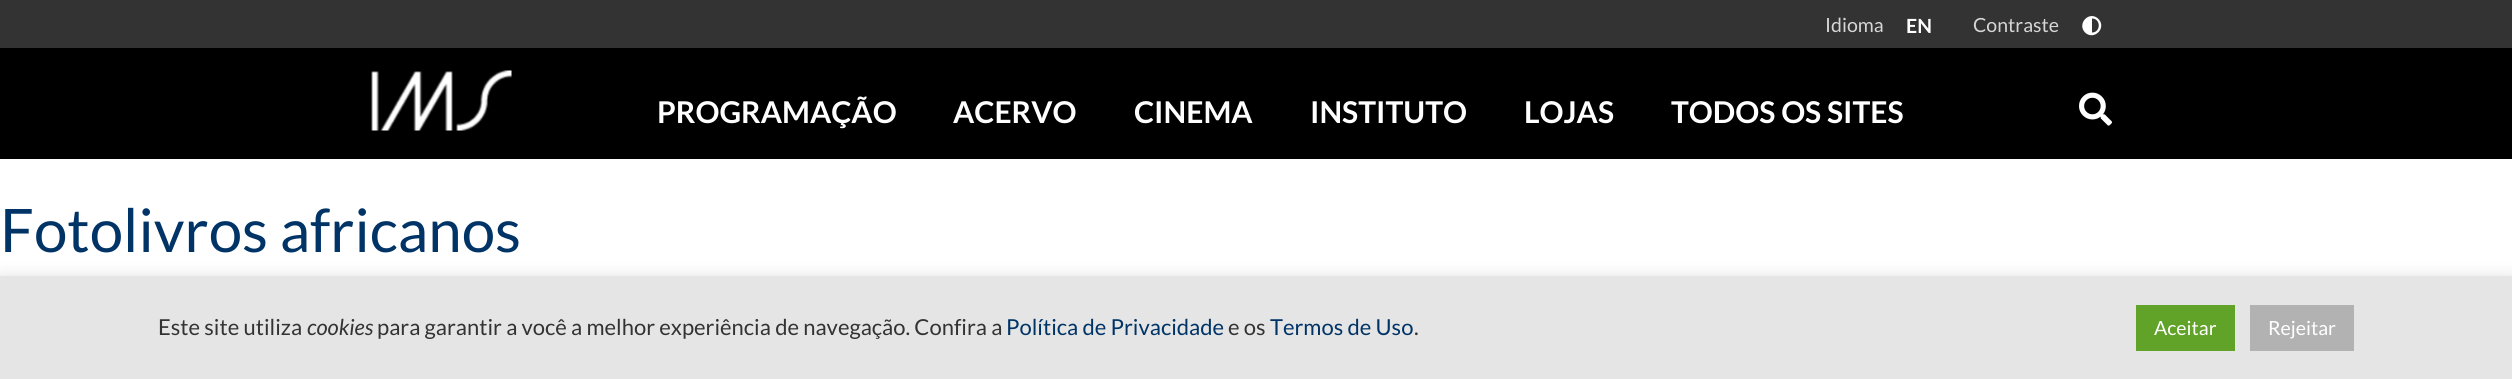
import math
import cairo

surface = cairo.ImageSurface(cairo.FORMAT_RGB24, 2512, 379)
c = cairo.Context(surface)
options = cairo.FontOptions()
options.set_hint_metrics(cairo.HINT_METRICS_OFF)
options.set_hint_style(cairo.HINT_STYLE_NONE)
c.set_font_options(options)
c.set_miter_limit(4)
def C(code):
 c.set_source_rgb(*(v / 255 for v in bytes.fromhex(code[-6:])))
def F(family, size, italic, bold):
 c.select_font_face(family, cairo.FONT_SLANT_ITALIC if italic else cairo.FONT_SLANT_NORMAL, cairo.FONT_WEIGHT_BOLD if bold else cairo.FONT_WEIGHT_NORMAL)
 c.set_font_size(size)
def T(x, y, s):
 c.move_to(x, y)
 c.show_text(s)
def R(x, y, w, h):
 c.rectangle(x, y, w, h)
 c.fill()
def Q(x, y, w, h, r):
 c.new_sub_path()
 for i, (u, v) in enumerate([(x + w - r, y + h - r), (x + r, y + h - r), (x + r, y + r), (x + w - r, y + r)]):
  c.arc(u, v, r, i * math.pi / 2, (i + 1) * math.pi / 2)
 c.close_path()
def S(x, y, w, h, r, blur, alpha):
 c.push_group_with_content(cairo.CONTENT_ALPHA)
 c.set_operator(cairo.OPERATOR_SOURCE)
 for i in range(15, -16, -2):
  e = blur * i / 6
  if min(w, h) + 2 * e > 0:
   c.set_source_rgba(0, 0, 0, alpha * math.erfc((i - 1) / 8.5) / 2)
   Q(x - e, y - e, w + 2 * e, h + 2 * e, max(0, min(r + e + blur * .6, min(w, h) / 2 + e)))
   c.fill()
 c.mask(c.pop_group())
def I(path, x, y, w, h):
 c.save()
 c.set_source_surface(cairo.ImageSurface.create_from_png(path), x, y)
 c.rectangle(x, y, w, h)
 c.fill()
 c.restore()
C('ffffff')
c.paint()
C('333333')
R(0,0,2512,48)
F('Lato',19.5,0,0)
C('d6d6d6')
T(1825,32,'Idioma')
F('Lato',19.5,0,1)
C('ffffff')
T(1906,33,'EN')
F('Lato',19.5,0,0)
C('d6d6d6')
T(1973,32,'Contraste')
C('ffffff')
c.new_path()
c.move_to(2085,32.5)
c.curve_to(2076.5,23.5,2089.5,10,2098.5,19)
c.curve_to(2107,28,2094,41,2085,32.5)
c.close_path()
c.move_to(2092,32.5)
c.curve_to(2101,32.5,2101,18.5,2092,18.5)
c.close_path()
c.fill()
C('000000')
R(0,48,2512,111)
I('1.png',371,70,141,61)
F('Lato',30,0,1)
C('ffffff')
T(657,123,'PROGRAMAÇÃO')
T(953,123,'ACERVO')
T(1134,123,'CINEMA')
T(1310,123,'INSTITUTO')
T(1524,123,'LOJAS')
T(1671,123,'TODOS OS SITES')
I('2.png',2079,92,33,34)
F('Lato',60,0,0)
C('003366')
T(0,252,'Fotolivros africanos')
C('acabab')
S(0,275,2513,103,0,7.5,.3)
C('e5e5e5')
R(0,276,2512,103)
F('Lato',22,0,0)
C('333333')
T(158,335,'Este site utiliza')
F('Lato',22,1,0)
T(307,335,'cookies')
F('Lato',22,0,0)
T(377,335,'para garantir a você a melhor experiência de navegação. Confira a')
C('003366')
T(1006,335,'Política de Privacidade')
C('333333')
T(1228,335,'e os')
C('003366')
T(1270,335,'Termos de Uso')
C('333333')
T(1414,335,'.')
C('61a229')
R(2136,305,99,46)
F('Lato',19.5,0,0)
C('ffffff')
T(2154,335,'Aceitar')
C('b2b2b3')
R(2250,305,104,46)
C('ffffff')
T(2268,335,'Rejeitar')
surface.write_to_png('o.png')
